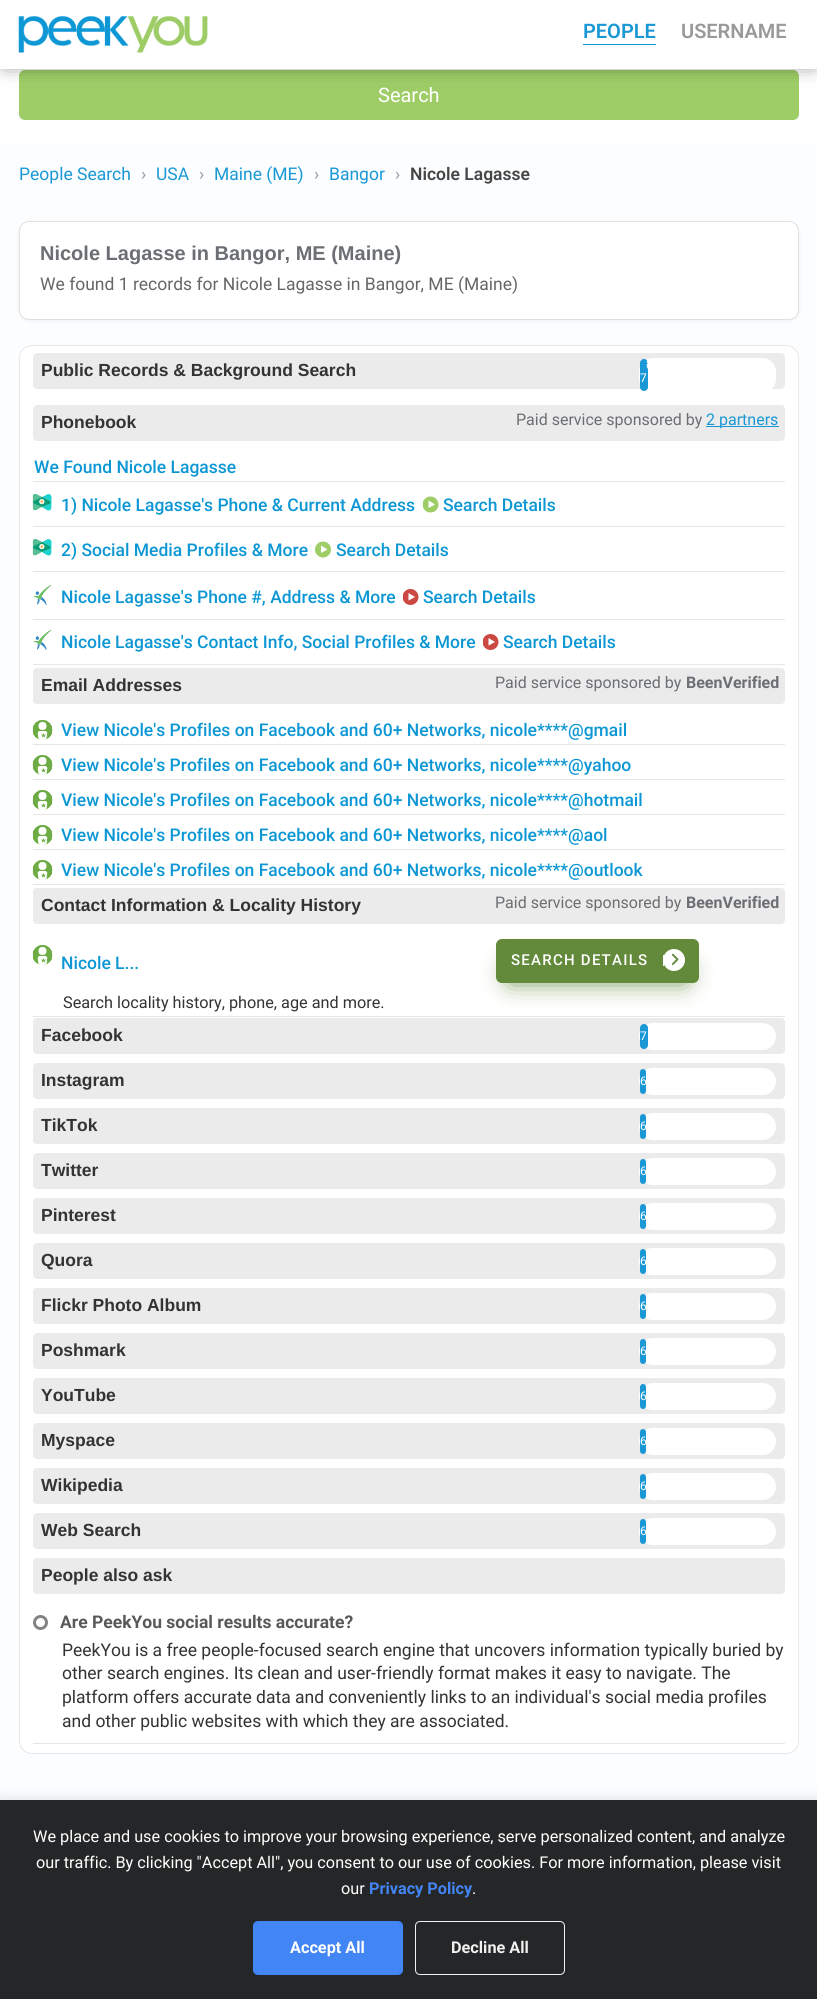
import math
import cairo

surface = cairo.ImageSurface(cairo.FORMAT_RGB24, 817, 1999)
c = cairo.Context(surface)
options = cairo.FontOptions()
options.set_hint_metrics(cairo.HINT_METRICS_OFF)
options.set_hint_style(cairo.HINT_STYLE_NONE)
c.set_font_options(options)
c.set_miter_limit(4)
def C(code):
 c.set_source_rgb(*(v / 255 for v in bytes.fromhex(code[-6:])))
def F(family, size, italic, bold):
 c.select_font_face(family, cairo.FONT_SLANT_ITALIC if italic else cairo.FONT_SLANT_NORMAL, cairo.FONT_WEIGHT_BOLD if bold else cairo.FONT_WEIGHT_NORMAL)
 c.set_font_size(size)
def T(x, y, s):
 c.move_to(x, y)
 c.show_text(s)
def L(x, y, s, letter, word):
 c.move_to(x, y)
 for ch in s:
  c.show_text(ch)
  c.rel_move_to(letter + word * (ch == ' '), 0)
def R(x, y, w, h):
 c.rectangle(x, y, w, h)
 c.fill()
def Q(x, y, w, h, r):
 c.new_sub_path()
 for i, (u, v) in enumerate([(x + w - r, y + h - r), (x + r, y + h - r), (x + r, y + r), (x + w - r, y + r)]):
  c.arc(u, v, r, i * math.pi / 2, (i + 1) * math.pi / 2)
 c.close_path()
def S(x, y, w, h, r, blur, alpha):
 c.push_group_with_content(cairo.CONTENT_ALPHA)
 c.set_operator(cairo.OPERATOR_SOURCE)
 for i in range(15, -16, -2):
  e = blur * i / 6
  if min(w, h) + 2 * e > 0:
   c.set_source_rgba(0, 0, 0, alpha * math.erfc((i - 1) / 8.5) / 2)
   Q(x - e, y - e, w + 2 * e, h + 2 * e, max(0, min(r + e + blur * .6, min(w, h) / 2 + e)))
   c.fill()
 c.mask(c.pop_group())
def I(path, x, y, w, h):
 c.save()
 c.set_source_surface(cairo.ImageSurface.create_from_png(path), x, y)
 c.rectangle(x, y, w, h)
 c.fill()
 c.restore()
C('fbfdff')
c.paint()
C('ffffff')
R(0,69,817,76)
C('9ecd67')
Q(19.5,70.5,779,49,5.5)
c.fill_preserve()
c.set_line_width(1)
c.stroke()
C('000000')
S(4,4,810,61,0,9.5,.5)
C('ffffff')
R(0,0,817,69)
I('1.png',18,16,190,37)
F('Roboto SemiBold',20,0,0)
C('1a98d5')
T(583,38,'PEOPLE')
C('0c97d4')
R(583,44,73,1)
C('999999')
T(681,38,'USERNAME')
F('Roboto',20,0,0)
C('ffffff')
T(378,102,'Search')
F('Roboto',17.5,0,0)
C('1a98d5')
T(19,180,'People Search')
C('999999')
T(141,180,'›')
C('1a98d5')
T(156,180,'USA')
C('999999')
T(199,180,'›')
C('1a98d5')
T(214,180,'Maine (ME)')
C('999999')
T(314,180,'›')
C('1a98d5')
T(329,180,'Bangor')
C('999999')
T(395,180,'›')
F('Roboto SemiBold',17.5,0,0)
C('454545')
T(410,180,'Nicole Lagasse')
C('000000')
S(19,223,780,98,10,2,.05)
C('ffffff')
Q(19.5,221.5,779,98,9.5)
c.fill_preserve()
C('e0e0e0')
c.stroke()
F('Liberation Sans',20,0,1)
C('6b6e72')
T(40,260,'Nicole Lagasse in Bangor, ME (Maine)')
F('Roboto',17.5,0,0)
C('666666')
T(40,290,'We found 1 records for Nicole Lagasse in Bangor, ME (Maine)')
C('ffffff')
Q(19.5,345.5,779,1408,12.5)
c.fill_preserve()
C('e8e8e8')
c.stroke()
C('ebebeb')
Q(33,353,752,36,4)
c.fill()
C('ffffff')
Q(639,358,137,27,13.5)
c.fill()
C('1a98d5')
Q(640,359,8,25,4)
c.fill()
F('Liberation Sans',17.5,0,1)
C('333333')
T(41,376,'Public Records & Background Search')
C('ffffff')
Q(639,360,137,28,14)
c.fill()
C('1a98d5')
Q(640,361,8,25,4)
c.fill()
C('ffffff')
Q(639,363,137,27,13.5)
c.fill()
C('1a98d5')
Q(640,364,8,25,4)
c.fill()
C('ffffff')
Q(639,365,137,28,14)
c.fill()
C('1a98d5')
Q(640,366,8,25,4)
c.fill()
F('Roboto',12,0,0)
C('ffffff')
T(640,382,'7')
C('ebebeb')
Q(33,405,752,36,4)
c.fill()
F('Roboto',16,0,0)
C('6b6e72')
T(516,425,'Paid service sponsored by')
C('1a98d5')
R(706,426,73,1)
T(706,425,'2 partners')
C('e6e6e6')
R(33,481,752,1)
F('Roboto Medium',17.5,0,0)
C('0c97d4')
T(34,473,'We Found Nicole Lagasse')
C('e6e6e6')
R(33,526,752,1)
I('2.png',32,494,20,17)
I('3.png',32,494,20,17)
C('0c97d4')
T(61,511,'1) Nicole Lagasse\'s Phone & Current Address')
c.save()
c.rectangle(423,496,16,17)
c.clip()
C('9ecd67')
c.arc(430.5,504.5,8,0,2 * math.pi)
c.fill()
c.restore()
T(443,511,'Search Details')
C('ffffff')
c.new_path()
c.move_to(435,504.5)
c.line_to(428.5,508)
c.line_to(428.5,500.5)
c.close_path()
c.fill()
C('e6e6e6')
R(33,571,752,1)
I('2.png',32,539,20,17)
I('3.png',32,539,20,17)
C('0c97d4')
T(61,556,'2) Social Media Profiles & More')
C('9ecd67')
c.new_path()
c.arc(323,549.5,8,0,2 * math.pi)
c.fill()
C('0c97d4')
T(336,556,'Search Details')
C('ffffff')
c.new_path()
c.move_to(327.5,549.5)
c.line_to(321,553)
c.line_to(321,545.5)
c.close_path()
c.fill()
F('Liberation Sans',17.5,0,1)
C('333333')
T(41,428,'Phonebook')
C('e6e6e6')
R(33,619,752,1)
I('4.png',33,585,19,20)
I('5.png',33,585,19,20)
F('Roboto Medium',17.5,0,0)
C('0c97d4')
T(61,603,'Nicole Lagasse\'s Phone #, Address & More')
c.save()
c.rectangle(403,589,16,16)
c.clip()
C('cc4943')
c.arc(410.5,597,8,0,2 * math.pi)
c.fill()
c.restore()
T(423,603,'Search Details')
C('ffffff')
c.new_path()
c.move_to(415,597)
c.line_to(408.5,600.5)
c.line_to(408.5,593)
c.close_path()
c.fill()
C('e6e6e6')
R(33,664,752,1)
I('4.png',33,630,19,20)
I('5.png',33,630,19,20)
C('0c97d4')
T(61,648,'Nicole Lagasse\'s Contact Info, Social Profiles & More')
c.save()
c.rectangle(483,634,16,16)
c.clip()
C('cc4943')
c.arc(490.5,642,8,0,2 * math.pi)
c.fill()
c.restore()
T(503,648,'Search Details')
C('ffffff')
c.new_path()
c.move_to(495,642)
c.line_to(488.5,645.5)
c.line_to(488.5,638)
c.close_path()
c.fill()
C('ebebeb')
Q(33,668,752,36,4)
c.fill()
F('Roboto',16,0,0)
C('6b6e72')
T(495,688,'Paid service sponsored by')
F('Roboto',16,0,1)
T(686,688,'BeenVerified')
C('e6e6e6')
R(33,744,752,1)
I('6.png',32,720,21,20)
I('7.png',32,720,21,20)
F('Roboto Medium',17.5,0,0)
C('0c97d4')
T(61,736,'View Nicole\'s Profiles on Facebook and 60+ Networks, nicole****@gmail')
C('e6e6e6')
R(33,779,752,1)
I('6.png',32,755,21,20)
I('7.png',32,755,21,20)
C('0c97d4')
T(61,771,'View Nicole\'s Profiles on Facebook and 60+ Networks, nicole****@yahoo')
C('e6e6e6')
R(33,814,752,1)
I('6.png',32,790,21,20)
I('7.png',32,790,21,20)
C('0c97d4')
T(61,806,'View Nicole\'s Profiles on Facebook and 60+ Networks, nicole****@hotmail')
C('e6e6e6')
R(33,849,752,1)
I('6.png',32,825,21,20)
I('7.png',32,825,21,20)
C('0c97d4')
T(61,841,'View Nicole\'s Profiles on Facebook and 60+ Networks, nicole****@aol')
C('e6e6e6')
R(33,884,752,1)
I('6.png',32,860,21,20)
I('7.png',32,860,21,20)
C('0c97d4')
T(61,876,'View Nicole\'s Profiles on Facebook and 60+ Networks, nicole****@outlook')
F('Liberation Sans',17.5,0,1)
C('333333')
T(41,691,'Email Addresses')
C('ebebeb')
Q(33,888,752,36,4)
c.fill()
F('Roboto',16,0,0)
C('6b6e72')
T(495,908,'Paid service sponsored by')
F('Roboto',16,0,1)
T(686,908,'BeenVerified')
C('e6e6e6')
R(33,1016,752,1)
I('6.png',32,945,21,20)
I('7.png',32,945,21,20)
F('Roboto Medium',17.5,0,0)
C('0c97d4')
T(61,969,'Nicole L...')
C('638a3a')
S(510,965,175,16,0,12.5,1)
C('638a3a')
Q(496,939,203,44,6)
c.fill()
F('Roboto Medium',15,0,0)
C('ffffff')
L(511,965,'SEARCH DETAILS',1.25,0)
c.new_path()
c.arc(674,960,11,0,2 * math.pi)
c.fill()
R(663,955,1,11)
I('8.png',671,953,8,12)
F('Roboto',16.25,0,0)
C('333333')
T(63,1008,'Search locality history, phone, age and more.')
F('Liberation Sans',17.5,0,1)
T(41,911,'Contact Information & Locality History')
C('ebebeb')
Q(33,1018,752,36,4)
c.fill()
C('333333')
T(41,1041,'Facebook')
C('ffffff')
Q(639,1023,137,27,13.5)
c.fill()
C('1a98d5')
Q(640,1024,8,25,4)
c.fill()
F('Roboto',12,0,0)
C('ffffff')
T(640,1040,'7')
C('ebebeb')
Q(33,1063,752,36,4)
c.fill()
F('Liberation Sans',17.5,0,1)
C('333333')
T(41,1086,'Instagram')
C('ffffff')
Q(639,1068,137,27,13.5)
c.fill()
C('1a98d5')
Q(640,1069,6,25,3)
c.fill()
c.save()
Q(640,1069,6,25,3)
c.clip()
F('Roboto',12,0,0)
C('ffffff')
T(640,1085,'6')
c.restore()
C('ebebeb')
Q(33,1108,752,36,4)
c.fill()
C('333333')
T(41,1131,'TikTok')
C('ffffff')
Q(639,1113,137,27,13.5)
c.fill()
C('1a98d5')
Q(640,1114,6,25,3)
c.fill()
c.save()
Q(640,1114,6,25,3)
c.clip()
F('Roboto',12,0,0)
C('ffffff')
T(640,1130,'6')
c.restore()
C('ebebeb')
Q(33,1153,752,36,4)
c.fill()
C('333333')
T(41,1176,'Twitter')
C('ffffff')
Q(639,1158,137,27,13.5)
c.fill()
C('1a98d5')
Q(640,1159,6,25,3)
c.fill()
c.save()
Q(640,1159,6,25,3)
c.clip()
F('Roboto',12,0,0)
C('ffffff')
T(640,1175,'6')
c.restore()
C('ebebeb')
Q(33,1198,752,36,4)
c.fill()
C('333333')
T(41,1221,'Pinterest')
C('ffffff')
Q(639,1203,137,27,13.5)
c.fill()
C('1a98d5')
Q(640,1204,6,25,3)
c.fill()
c.save()
Q(640,1204,6,25,3)
c.clip()
F('Roboto',12,0,0)
C('ffffff')
T(640,1220,'6')
c.restore()
C('ebebeb')
Q(33,1243,752,36,4)
c.fill()
C('333333')
T(41,1266,'Quora')
C('ffffff')
Q(639,1248,137,27,13.5)
c.fill()
C('1a98d5')
Q(640,1249,6,25,3)
c.fill()
c.save()
Q(640,1249,6,25,3)
c.clip()
F('Roboto',12,0,0)
C('ffffff')
T(640,1265,'6')
c.restore()
C('ebebeb')
Q(33,1288,752,36,4)
c.fill()
C('333333')
T(41,1311,'Flickr Photo Album')
C('ffffff')
Q(639,1293,137,27,13.5)
c.fill()
C('1a98d5')
Q(640,1294,6,25,3)
c.fill()
c.save()
Q(640,1294,6,25,3)
c.clip()
F('Roboto',12,0,0)
C('ffffff')
T(640,1310,'6')
c.restore()
C('ebebeb')
Q(33,1333,752,36,4)
c.fill()
C('333333')
T(41,1356,'Poshmark')
C('ffffff')
Q(639,1338,137,27,13.5)
c.fill()
C('1a98d5')
Q(640,1339,6,25,3)
c.fill()
c.save()
Q(640,1339,6,25,3)
c.clip()
F('Roboto',12,0,0)
C('ffffff')
T(640,1355,'6')
c.restore()
C('ebebeb')
Q(33,1378,752,36,4)
c.fill()
C('333333')
T(41,1401,'YouTube')
C('ffffff')
Q(639,1383,137,27,13.5)
c.fill()
C('1a98d5')
Q(640,1384,6,25,3)
c.fill()
c.save()
Q(640,1384,6,25,3)
c.clip()
F('Roboto',12,0,0)
C('ffffff')
T(640,1400,'6')
c.restore()
C('ebebeb')
Q(33,1423,752,36,4)
c.fill()
C('333333')
T(41,1446,'Myspace')
C('ffffff')
Q(639,1428,137,27,13.5)
c.fill()
C('1a98d5')
Q(640,1429,6,25,3)
c.fill()
c.save()
Q(640,1429,6,25,3)
c.clip()
F('Roboto',12,0,0)
C('ffffff')
T(640,1445,'6')
c.restore()
C('ebebeb')
Q(33,1468,752,36,4)
c.fill()
C('333333')
T(41,1491,'Wikipedia')
C('ffffff')
Q(639,1473,137,27,13.5)
c.fill()
C('1a98d5')
Q(640,1474,6,25,3)
c.fill()
c.save()
Q(640,1474,6,25,3)
c.clip()
F('Roboto',12,0,0)
C('ffffff')
T(640,1490,'6')
c.restore()
C('ebebeb')
Q(33,1513,752,36,4)
c.fill()
C('333333')
T(41,1536,'Web Search')
C('ffffff')
Q(639,1518,137,27,13.5)
c.fill()
C('1a98d5')
Q(640,1519,6,25,3)
c.fill()
c.save()
Q(640,1519,6,25,3)
c.clip()
F('Roboto',12,0,0)
C('ffffff')
T(640,1535,'6')
c.restore()
C('ebebeb')
Q(33,1558,752,36,4)
c.fill()
C('333333')
T(41,1581,'People also ask')
C('e6e6e6')
R(33,1743,752,1)
c.new_path()
c.arc(40.5,1622.5,6,0,2 * math.pi)
C('828282')
c.set_line_width(3)
c.stroke()
F('Roboto',17.5,0,1)
C('595959')
T(60,1628,'Are PeekYou social results accurate?')
F('Roboto',17.5,0,0)
C('333333')
T(62,1656,'PeekYou is a free people-focused search engine that uncovers information typically buried by')
T(62,1679,'other search engines. Its clean and user-friendly format makes it easy to navigate. The')
T(62,1703,'platform offers accurate data and conveniently links to an individual\'s social media profiles')
T(62,1727,'and other public websites with which they are associated.')
C('000000')
S(0,1798,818,200,0,6,.1)
C('252627')
R(0,1800,817,199)
F('Roboto',16.25,0,0)
C('ffffff')
T(33,1842,'We place and use cookies to improve your browsing experience, serve personalized content, and analyze')
T(36,1868,'our traffic. By clicking "Accept All", you consent to our use of cookies. For more information, please visit')
T(341,1894,'our')
F('Roboto',16.25,0,1)
C('4285f4')
T(369,1894,'Privacy Policy')
F('Roboto',16.25,0,0)
C('ffffff')
T(472,1894,'.')
C('4285f4')
Q(253,1921,150,54,5)
c.fill()
F('Roboto',16.25,0,1)
C('ffffff')
T(290,1953,'Accept All')
Q(415.5,1921.5,149,53,4.5)
C('f1f1f1')
c.set_line_width(1)
c.stroke()
T(451,1953,'Decline All')
surface.write_to_png('o.png')
